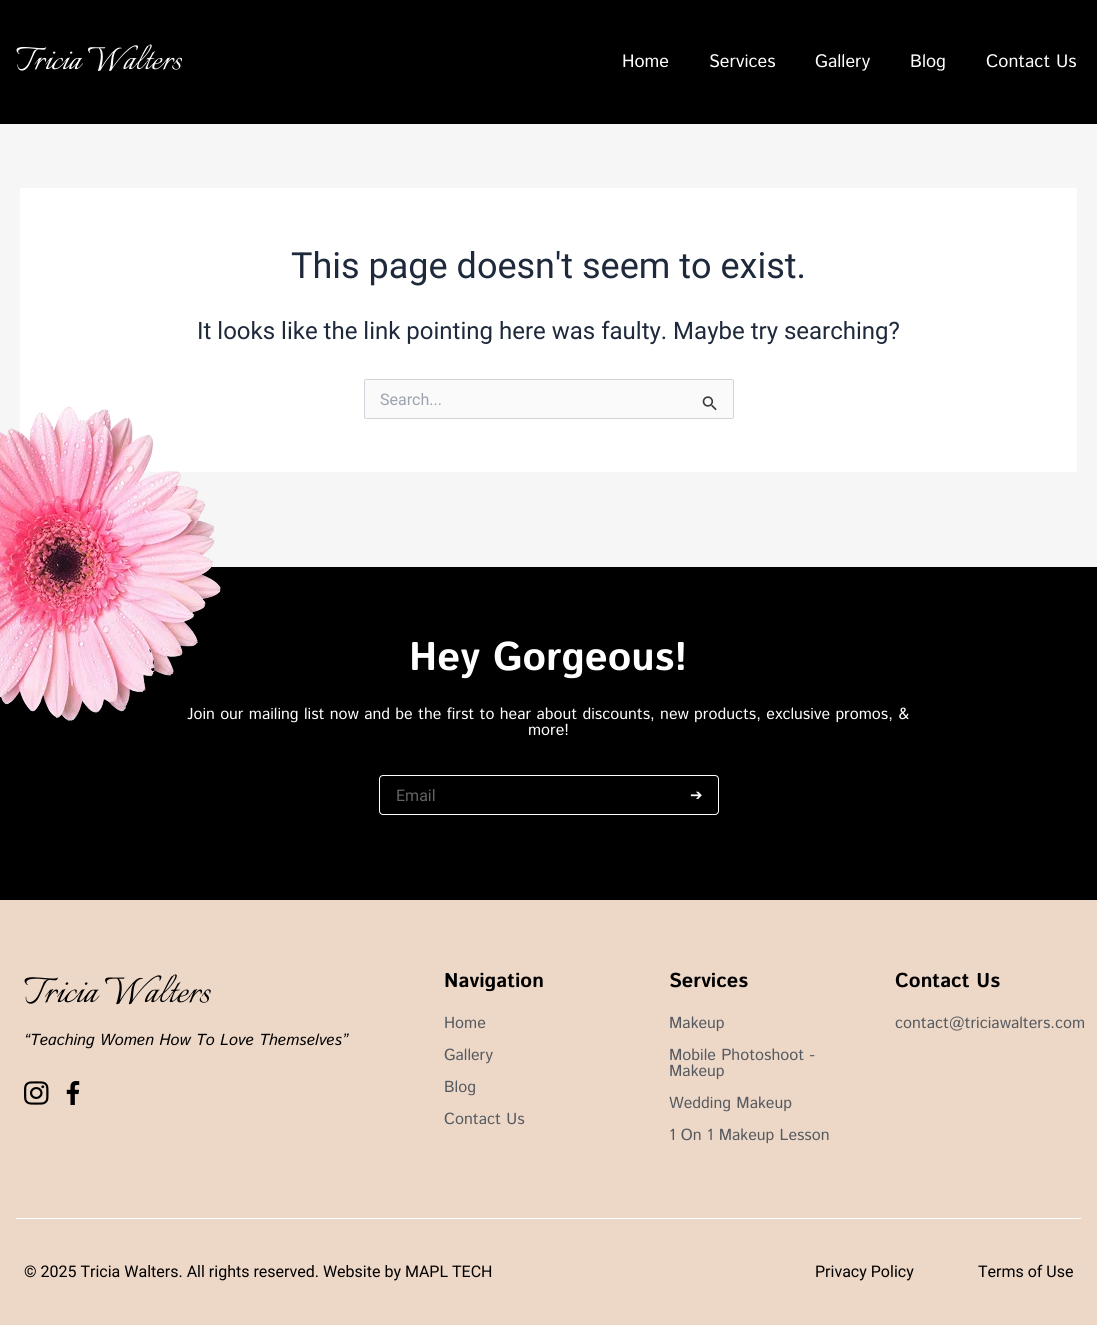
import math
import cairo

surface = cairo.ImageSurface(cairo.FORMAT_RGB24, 1097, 1325)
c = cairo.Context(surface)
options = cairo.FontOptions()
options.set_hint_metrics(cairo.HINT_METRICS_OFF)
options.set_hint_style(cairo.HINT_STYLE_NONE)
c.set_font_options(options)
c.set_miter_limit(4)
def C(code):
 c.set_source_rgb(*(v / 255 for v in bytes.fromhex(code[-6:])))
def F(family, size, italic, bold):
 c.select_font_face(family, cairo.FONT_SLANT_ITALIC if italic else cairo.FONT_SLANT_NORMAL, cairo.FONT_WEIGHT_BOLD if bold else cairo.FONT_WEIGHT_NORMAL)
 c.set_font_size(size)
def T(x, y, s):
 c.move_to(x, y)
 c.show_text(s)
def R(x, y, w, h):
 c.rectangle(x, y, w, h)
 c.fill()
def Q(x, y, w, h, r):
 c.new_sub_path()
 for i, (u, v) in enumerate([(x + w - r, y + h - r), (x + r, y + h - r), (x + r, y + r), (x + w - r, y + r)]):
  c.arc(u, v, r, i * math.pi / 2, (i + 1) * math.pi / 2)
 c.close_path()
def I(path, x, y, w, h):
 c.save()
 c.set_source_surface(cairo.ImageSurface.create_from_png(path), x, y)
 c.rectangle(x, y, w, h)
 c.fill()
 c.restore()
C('f6f6f6')
c.paint()
C('000000')
R(0,0,1097,124)
F('Italianno',40,0,0)
C('ffffff')
T(16,69,'Tricia Walters')
F('Istok Web',18,0,0)
T(622,67,'Home')
T(709,67,'Services')
T(815,67,'Gallery')
T(910,67,'Blog')
T(986,67,'Contact Us')
R(20,188,1057,284)
F('Roboto',36,0,0)
C('1e293b')
T(291,278,'This page doesn\'t seem to exist.')
F('Roboto',24,0,0)
T(197,339,'It looks like the link pointing here was faulty. Maybe try searching?')
C('fafafa')
Q(364.5,379.5,369,39,1.5)
c.fill_preserve()
C('d1d5db')
c.set_line_width(1)
c.stroke()
F('Roboto',16,0,0)
C('9ca3af')
T(380,405,'Search...')
I('1.png',702,396,15,15)
C('000000')
R(0,567,1097,333)
F('Istok Web',16,0,0)
C('ffffff')
T(187,719,'Join our mailing list now and be the first to hear about discounts, new products, exclusive promos, &')
I('2.png',0,406,221,315)
F('Istok Web',40,0,1)
T(409,670,'Hey Gorgeous!')
F('Istok Web',16,0,0)
T(528,735,'more!')
Q(379.5,775.5,339,39,3.5)
c.stroke()
F('Roboto',16,0,0)
C('636363')
T(396,801,'Email')
F('DejaVu Sans',15,0,0)
C('ffffff')
T(690,800,'➔')
C('edd7c7')
R(0,900,1097,425)
F('Italianno',45,0,0)
C('000000')
T(24,1002,'Tricia Walters')
F('Istok Web',16,1,0)
T(24,1045,'“Teaching Women How To Love Themselves”')
I('3.png',24,1081,25,24)
I('4.png',66,1081,14,24)
F('Istok Web',20,0,1)
T(444,987,'Navigation')
F('Istok Web',16,0,0)
C('54595f')
T(444,1028,'Home')
T(444,1060,'Gallery')
T(444,1092,'Blog')
T(444,1124,'Contact Us')
F('Istok Web',20,0,1)
C('000000')
T(669,987,'Services')
F('Istok Web',16,0,0)
C('54595f')
T(669,1028,'Makeup')
T(669,1060,'Mobile Photoshoot -')
T(669,1076,'Makeup')
T(669,1108,'Wedding Makeup')
T(669,1140,'1 On 1 Makeup Lesson')
F('Istok Web',20,0,1)
C('000000')
T(895,987,'Contact Us')
F('Istok Web',16,0,0)
C('54595f')
T(895,1028,'contact@triciawalters.com')
C('ffffff')
R(16,1218,1065,1)
F('Roboto',16,0,0)
C('000000')
T(24,1277,'© 2025 Tricia Walters. All rights reserved. Website by MAPL TECH')
T(815,1277,'Privacy Policy')
T(978,1277,'Terms of Use')
surface.write_to_png('o.png')
